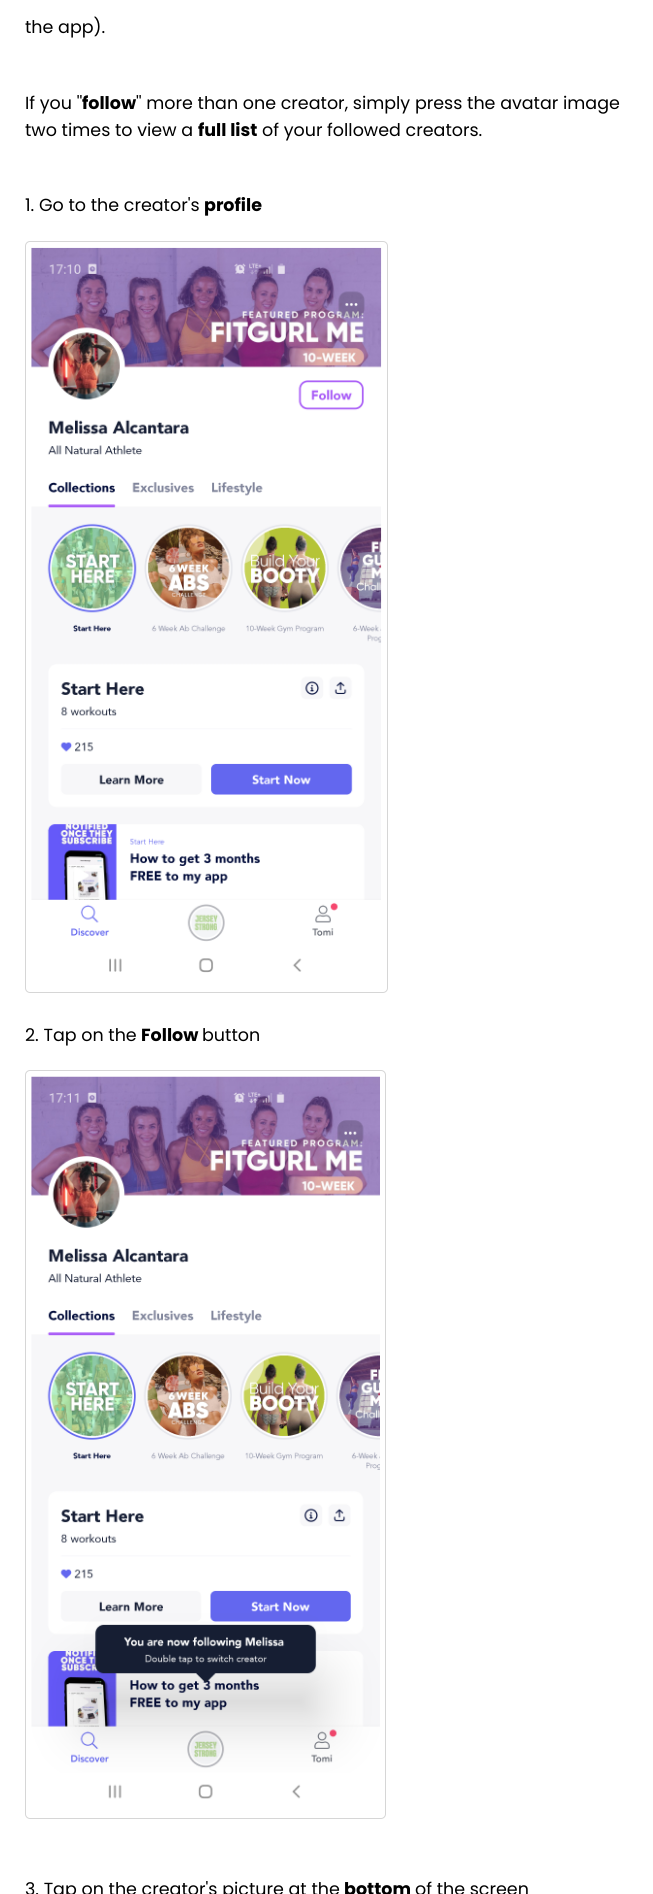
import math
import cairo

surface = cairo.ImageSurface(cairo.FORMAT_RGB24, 653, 1894)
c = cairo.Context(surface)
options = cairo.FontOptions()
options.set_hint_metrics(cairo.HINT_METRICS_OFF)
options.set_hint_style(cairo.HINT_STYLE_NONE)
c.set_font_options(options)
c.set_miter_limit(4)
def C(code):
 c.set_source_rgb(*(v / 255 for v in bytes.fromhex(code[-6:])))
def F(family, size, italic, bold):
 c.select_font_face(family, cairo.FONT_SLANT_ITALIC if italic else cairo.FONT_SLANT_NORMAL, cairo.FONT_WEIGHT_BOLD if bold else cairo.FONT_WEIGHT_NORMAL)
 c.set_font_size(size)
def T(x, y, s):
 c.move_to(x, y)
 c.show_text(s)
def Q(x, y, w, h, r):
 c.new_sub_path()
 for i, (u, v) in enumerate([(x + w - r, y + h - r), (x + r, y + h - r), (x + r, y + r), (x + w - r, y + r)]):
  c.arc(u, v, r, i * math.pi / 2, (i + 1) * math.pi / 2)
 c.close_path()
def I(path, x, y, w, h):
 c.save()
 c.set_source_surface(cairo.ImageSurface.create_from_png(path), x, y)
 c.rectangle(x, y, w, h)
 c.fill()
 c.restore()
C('ffffff')
c.paint()
F('Poppins',17.5,0,0)
C('000000')
T(25,33,'the app).')
T(25,109,'If you \'\'')
F('Poppins',17.5,0,1)
T(82,109,'follow')
F('Poppins',17.5,0,0)
T(136,109,'\'\' more than one creator, simply press the avatar image')
T(25,136,'two times to view a')
F('Poppins',17.5,0,1)
T(198,136,'full list')
F('Poppins',17.5,0,0)
T(262,136,'of your followed creators.')
T(25,211,'1. Go to the creator\'s')
F('Poppins',17.5,0,1)
T(204,211,'profile')
Q(25.5,241.5,362,751,4.5)
C('d6d6d6')
c.set_line_width(1)
c.stroke()
I('1.png',31,247,351,726)
F('Poppins',17.5,0,0)
C('000000')
T(25,1041,'2. Tap on the')
F('Poppins',17.5,0,1)
T(141,1041,'Follow')
F('Poppins',17.5,0,0)
T(202,1041,'button')
Q(25.5,1070.5,360,748,4.5)
C('d6d6d6')
c.stroke()
I('2.png',31,1076,349,723)
C('000000')
T(25,1895,'3. Tap on the creator\'s picture at the')
F('Poppins',17.5,0,1)
T(344,1895,'bottom')
F('Poppins',17.5,0,0)
T(415,1895,'of the screen')
surface.write_to_png('o.png')
